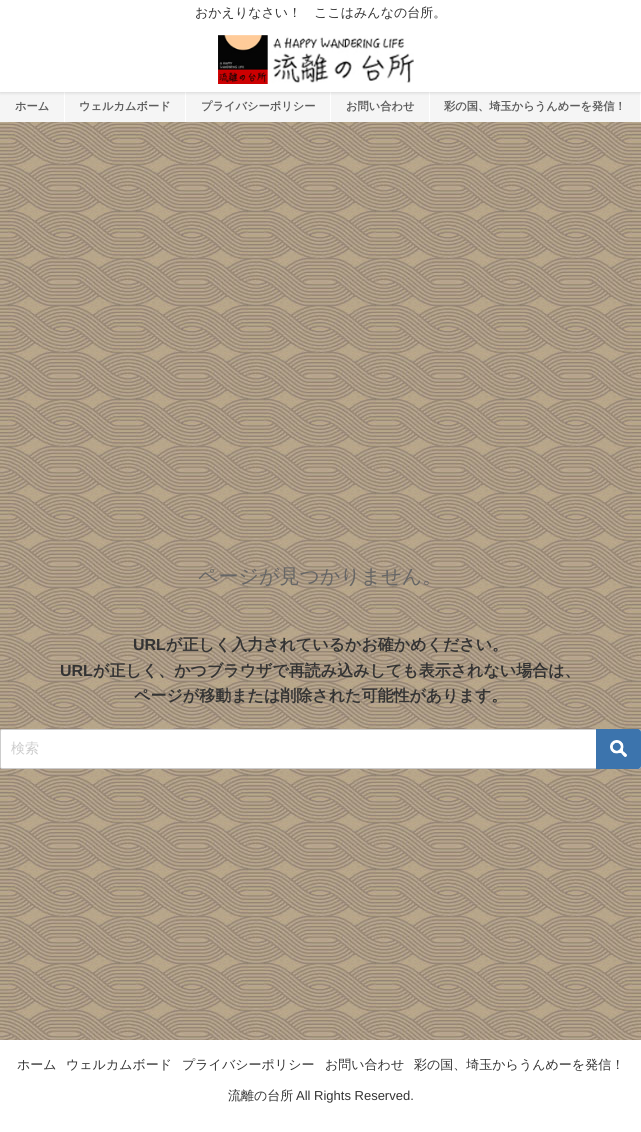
import math
import cairo

surface = cairo.ImageSurface(cairo.FORMAT_RGB24, 641, 1132)
c = cairo.Context(surface)
options = cairo.FontOptions()
options.set_hint_metrics(cairo.HINT_METRICS_OFF)
options.set_hint_style(cairo.HINT_STYLE_NONE)
c.set_font_options(options)
c.set_miter_limit(4)
def C(code):
 c.set_source_rgb(*(v / 255 for v in bytes.fromhex(code[-6:])))
def F(family, size, italic, bold):
 c.select_font_face(family, cairo.FONT_SLANT_ITALIC if italic else cairo.FONT_SLANT_NORMAL, cairo.FONT_WEIGHT_BOLD if bold else cairo.FONT_WEIGHT_NORMAL)
 c.set_font_size(size)
def T(x, y, s):
 c.move_to(x, y)
 c.show_text(s)
def R(x, y, w, h):
 c.rectangle(x, y, w, h)
 c.fill()
def Q(x, y, w, h, r):
 c.new_sub_path()
 for i, (u, v) in enumerate([(x + w - r, y + h - r), (x + r, y + h - r), (x + r, y + r), (x + w - r, y + r)]):
  c.arc(u, v, r, i * math.pi / 2, (i + 1) * math.pi / 2)
 c.close_path()
def S(x, y, w, h, r, blur, alpha):
 c.push_group_with_content(cairo.CONTENT_ALPHA)
 c.set_operator(cairo.OPERATOR_SOURCE)
 for i in range(15, -16, -2):
  e = blur * i / 6
  if min(w, h) + 2 * e > 0:
   c.set_source_rgba(0, 0, 0, alpha * math.erfc((i - 1) / 8.5) / 2)
   Q(x - e, y - e, w + 2 * e, h + 2 * e, max(0, min(r + e + blur * .6, min(w, h) / 2 + e)))
   c.fill()
 c.mask(c.pop_group())
def I(path, x, y, w, h):
 c.save()
 c.set_source_surface(cairo.ImageSurface.create_from_png(path), x, y)
 c.rectangle(x, y, w, h)
 c.fill()
 c.restore()
C('ffffff')
c.paint()
I('1.png',0,122,641,918)
C('f5f5f5')
R(0,92,64,30)
R(65,92,120,30)
R(186,92,144,30)
R(331,92,98,30)
R(430,92,210,30)
C('000000')
S(0,0,641,92,0,2,.2)
C('ffffff')
R(0,0,641,92)
F('WenQuanYi Zen Hei Medium',13,0,0)
C('333333')
T(195,17,'おかえりなさい！　ここはみんなの台所。')
I('2.png',218,35,196,49)
F('WenQuanYi Zen Hei',11.25,0,1)
C('5c5c5c')
T(15,110,'ホーム')
T(79,110,'ウェルカムボード')
T(201,110,'プライバシーポリシー')
T(346,110,'お問い合わせ')
T(444,110,'彩の国、埼玉からうんめーを発信！')
F('WenQuanYi Zen Hei Medium',20,0,0)
C('666666')
T(198,583,'ページが見つかりません。')
F('Liberation Sans',16,0,1)
C('333333')
T(133,650,'URL')
F('WenQuanYi Zen Hei',16,0,1)
T(166,650,'が正しく入力されているかお確かめください。')
F('Liberation Sans',16,0,1)
T(60,676,'URL')
F('WenQuanYi Zen Hei',16,0,1)
T(93,676,'が正しく、かつブラウザで再読み込みしても表示されない場合は、')
T(134,701,'ページが移動または削除された可能性があります。')
C('ffffff')
Q(.5,729.5,640,39,1.5)
c.fill_preserve()
C('cccccc')
c.set_line_width(1)
c.stroke()
F('WenQuanYi Zen Hei Medium',14,0,0)
T(11,753,'検索')
C('3c74ad')
c.new_path()
c.move_to(596,729)
c.line_to(638,729)
c.curve_to(639.5,729,641,730.5,641,732)
c.line_to(641,766)
c.curve_to(641,767.5,639.5,769,638,769)
c.line_to(596,769)
c.close_path()
c.fill()
I('3.png',610,740,17,17)
F('WenQuanYi Zen Hei Medium',13,0,0)
C('333333')
T(17,1069,'ホーム')
T(66,1069,'ウェルカムボード')
T(182,1069,'プライバシーポリシー')
T(325,1069,'お問い合わせ')
T(414,1069,'彩の国、埼玉からうんめーを発信！')
T(228,1100,'流離の台所')
F('Liberation Sans',13,0,0)
T(296,1100,'All Rights Reserved.')
surface.write_to_png('o.png')
